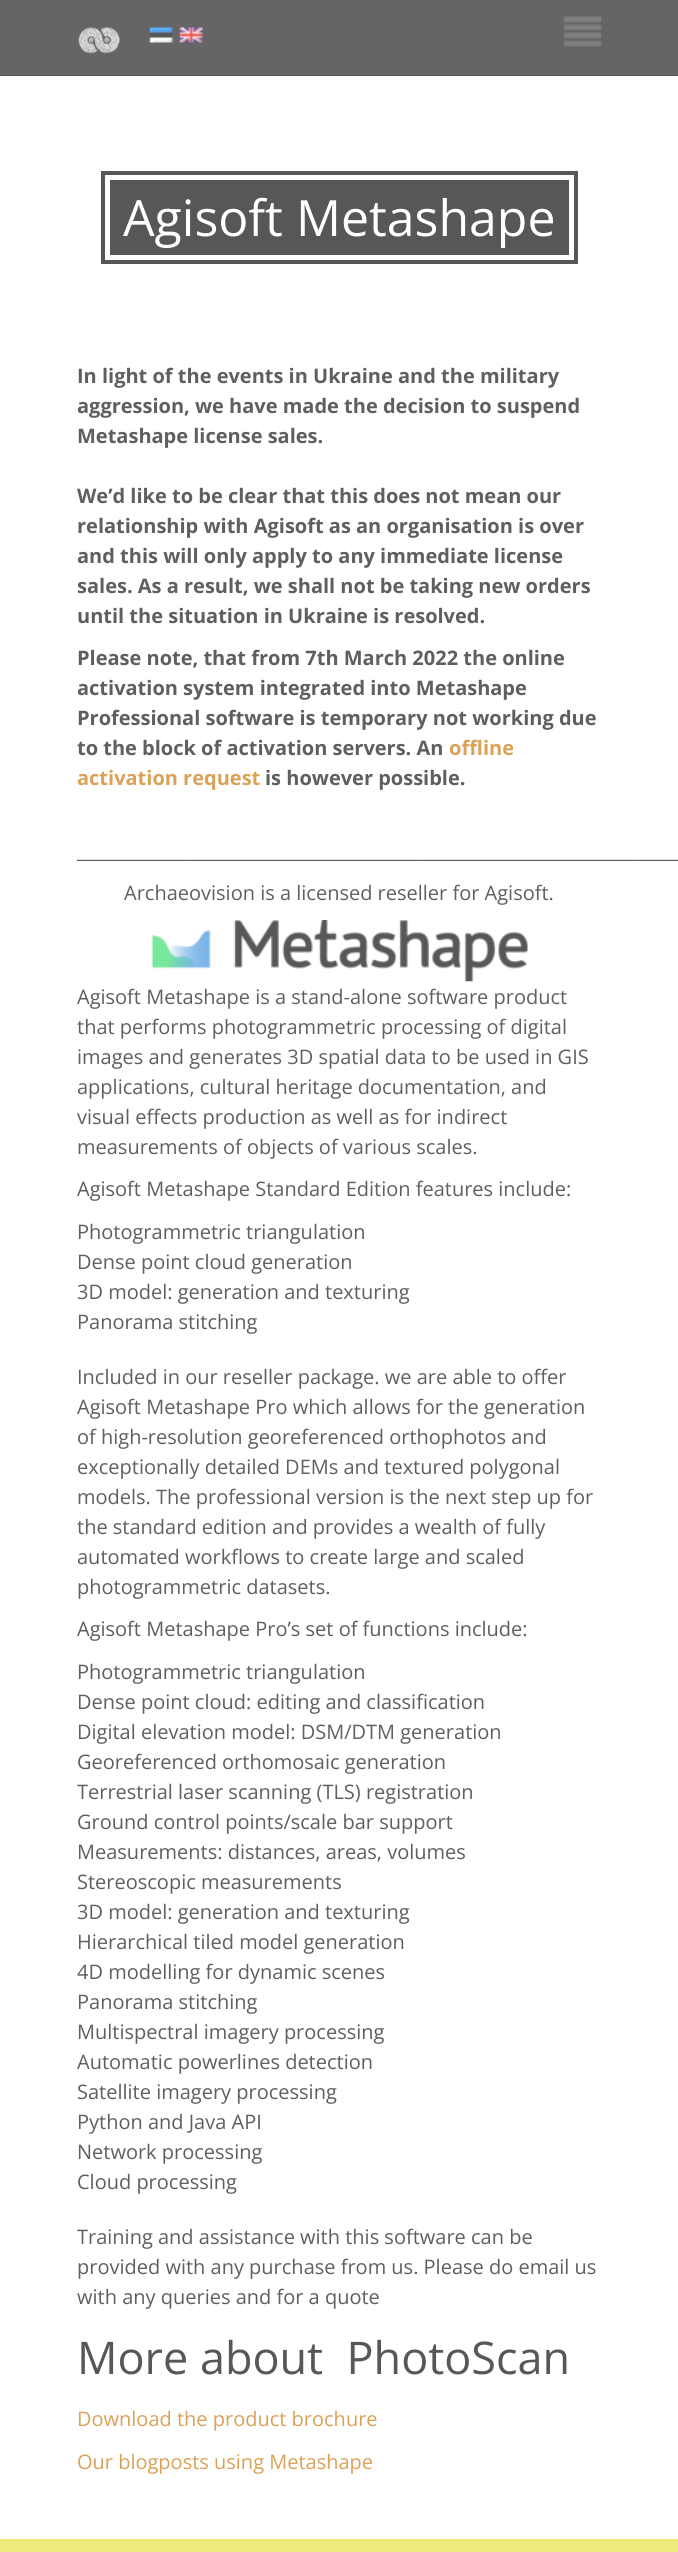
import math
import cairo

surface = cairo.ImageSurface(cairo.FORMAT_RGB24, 678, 2552)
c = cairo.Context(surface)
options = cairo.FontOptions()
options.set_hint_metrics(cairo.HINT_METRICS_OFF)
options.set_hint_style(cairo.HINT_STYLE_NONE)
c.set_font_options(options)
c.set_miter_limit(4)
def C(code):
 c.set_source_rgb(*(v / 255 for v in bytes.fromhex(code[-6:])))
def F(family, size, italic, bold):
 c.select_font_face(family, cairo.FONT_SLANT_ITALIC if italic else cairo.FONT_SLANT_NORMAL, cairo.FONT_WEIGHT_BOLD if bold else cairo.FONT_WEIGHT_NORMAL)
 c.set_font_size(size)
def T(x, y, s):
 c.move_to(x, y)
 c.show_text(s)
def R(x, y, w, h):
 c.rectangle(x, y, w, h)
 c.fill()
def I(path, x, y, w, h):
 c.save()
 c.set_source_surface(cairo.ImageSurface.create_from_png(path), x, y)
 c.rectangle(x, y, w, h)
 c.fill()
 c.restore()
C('ffffff')
c.paint()
C('656565')
R(0,0,678,75)
C('575757')
R(0,75,678,1)
I('1.png',78,27,43,27)
I('2.png',149,27,25,16)
I('3.png',179,27,25,16)
I('4.png',563,16,39,31)
c.rectangle(103,173,473,89)
c.set_line_width(4)
c.stroke()
R(110,180,459,75)
F('Open Sans',50,0,0)
C('ffffff')
T(123,236,'Agisoft Metashape')
F('Open Sans',20,0,1)
C('5f5f5f')
T(77,383,'In light of the events in Ukraine and the military')
T(77,413,'aggression, we have made the decision to suspend')
T(77,443,'Metashape license sales.')
T(77,503,'We’d like to be clear that this does not mean our')
T(77,533,'relationship with Agisoft as an organisation is over')
T(77,563,'and this will only apply to any immediate license')
T(77,593,'sales. As a result, we shall not be taking new orders')
T(77,623,'until the situation in Ukraine is resolved.')
T(77,665,'Please note, that from 7th March 2022 the online')
T(77,695,'activation system integrated into Metashape')
T(77,725,'Professional software is temporary not working due')
T(77,755,'to the block of activation servers. An')
C('daa157')
T(449,755,'offline')
T(77,785,'activation request')
C('5f5f5f')
T(265,785,'is however possible.')
F('Open Sans',20,0,0)
T(77,858,'_____________________________________________________________________')
T(124,900,'Archaeovision is a licensed reseller for Agisoft.')
I('5.png',152,920,376,62)
T(77,1004,'Agisoft Metashape is a stand-alone software product')
T(77,1034,'that performs photogrammetric processing of digital')
T(77,1064,'images and generates 3D spatial data to be used in GIS')
T(77,1094,'applications, cultural heritage documentation, and')
T(77,1124,'visual effects production as well as for indirect')
T(77,1154,'measurements of objects of various scales.')
T(77,1196,'Agisoft Metashape Standard Edition features include:')
T(77,1239,'Photogrammetric triangulation')
T(77,1269,'Dense point cloud generation')
T(77,1299,'3D model: generation and texturing')
T(77,1329,'Panorama stitching')
T(77,1384,'Included in our reseller package. we are able to offer')
T(77,1414,'Agisoft Metashape Pro which allows for the generation')
T(77,1444,'of high-resolution georeferenced orthophotos and')
T(77,1474,'exceptionally detailed DEMs and textured polygonal')
T(77,1504,'models. The professional version is the next step up for')
T(77,1534,'the standard edition and provides a wealth of fully')
T(77,1564,'automated workflows to create large and scaled')
T(77,1594,'photogrammetric datasets.')
T(77,1636,'Agisoft Metashape Pro’s set of functions include:')
T(77,1679,'Photogrammetric triangulation')
T(77,1709,'Dense point cloud: editing and classification')
T(77,1739,'Digital elevation model: DSM/DTM generation')
T(77,1769,'Georeferenced orthomosaic generation')
T(77,1799,'Terrestrial laser scanning (TLS) registration')
T(77,1829,'Ground control points/scale bar support')
T(77,1859,'Measurements: distances, areas, volumes')
T(77,1889,'Stereoscopic measurements')
T(77,1919,'3D model: generation and texturing')
T(77,1949,'Hierarchical tiled model generation')
T(77,1979,'4D modelling for dynamic scenes')
T(77,2009,'Panorama stitching')
T(77,2039,'Multispectral imagery processing')
T(77,2069,'Automatic powerlines detection')
T(77,2099,'Satellite imagery processing')
T(77,2129,'Python and Java API')
T(77,2159,'Network processing')
T(77,2189,'Cloud processing')
T(77,2244,'Training and assistance with this software can be')
T(77,2274,'provided with any purchase from us. Please do email us')
T(77,2304,'with any queries and for a quote')
F('Open Sans',45,0,0)
C('575757')
T(77,2374,'More about  PhotoScan')
F('Open Sans',20,0,0)
C('daa157')
T(77,2426,'Download the product brochure')
T(77,2469,'Our blogposts using Metashape')
C('f0ea7d')
R(0,2539,678,13)
surface.write_to_png('o.png')
